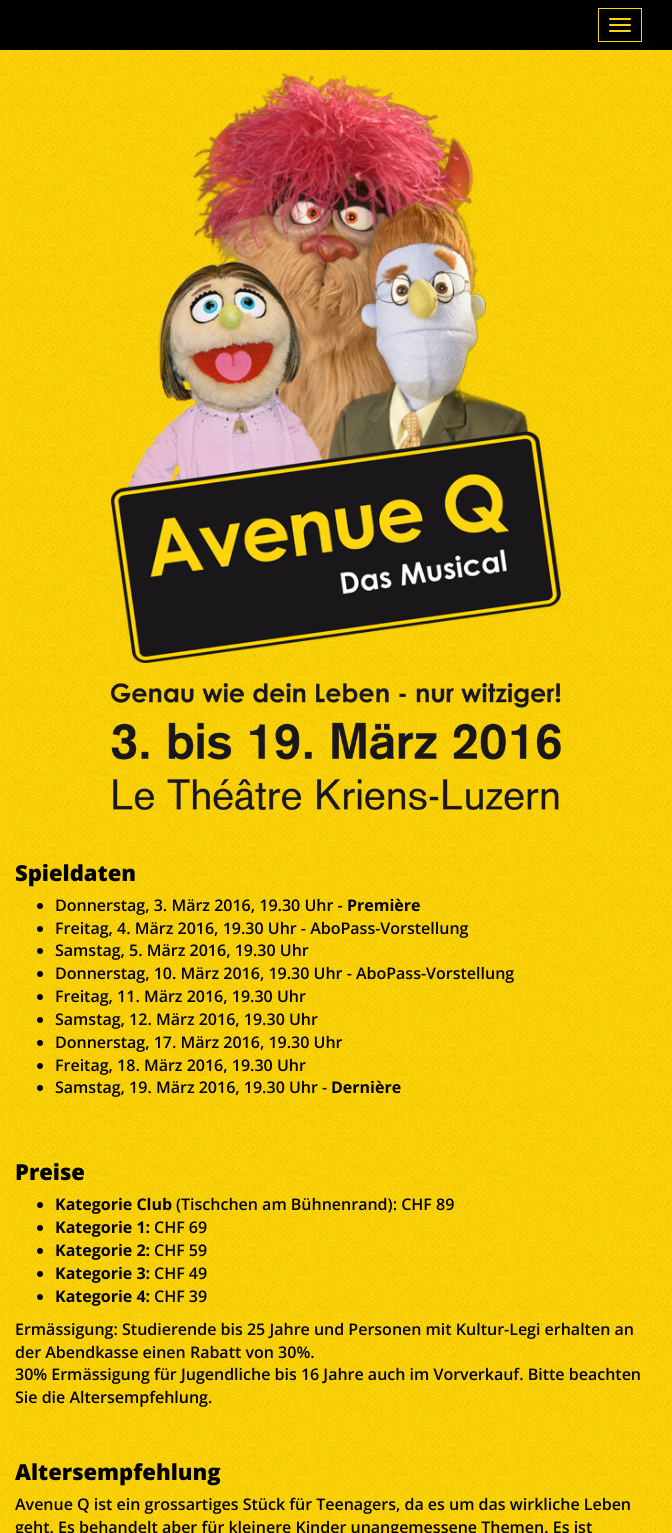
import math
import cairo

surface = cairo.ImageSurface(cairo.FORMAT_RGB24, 672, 1533)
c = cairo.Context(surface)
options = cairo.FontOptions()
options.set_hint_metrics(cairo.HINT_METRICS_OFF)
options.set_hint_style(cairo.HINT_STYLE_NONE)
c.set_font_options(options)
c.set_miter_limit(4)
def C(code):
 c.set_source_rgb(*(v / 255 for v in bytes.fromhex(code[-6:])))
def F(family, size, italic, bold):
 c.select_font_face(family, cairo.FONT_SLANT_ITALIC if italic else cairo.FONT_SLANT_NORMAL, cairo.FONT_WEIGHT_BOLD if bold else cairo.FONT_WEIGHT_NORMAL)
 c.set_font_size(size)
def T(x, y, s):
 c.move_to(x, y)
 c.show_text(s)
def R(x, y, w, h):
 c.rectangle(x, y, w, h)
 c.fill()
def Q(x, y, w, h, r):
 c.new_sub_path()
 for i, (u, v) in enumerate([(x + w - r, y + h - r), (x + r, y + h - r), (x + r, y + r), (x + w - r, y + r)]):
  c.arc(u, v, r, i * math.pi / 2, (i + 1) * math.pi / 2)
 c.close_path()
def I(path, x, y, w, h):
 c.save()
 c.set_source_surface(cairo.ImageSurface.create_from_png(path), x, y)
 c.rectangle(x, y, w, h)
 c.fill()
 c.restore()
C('ffffff')
c.paint()
I('1.png',0,50,672,1483)
C('000000')
R(0,0,672,50)
c.rectangle(598.5,8.5,43,33)
C('fcd50e')
c.set_line_width(1)
c.stroke()
Q(609,18,22,2,1)
c.fill()
Q(609,24,22,2,1)
c.fill()
Q(609,30,22,2,1)
c.fill()
I('2.png',111,72,450,591)
I('3.png',111,683,450,127)
F('Open Sans ExtraBold',22,0,0)
C('000000')
T(15,881,'Spieldaten')
c.new_path()
c.arc(40,906,3,0,2 * math.pi)
c.fill()
F('Open Sans SemiBold',16,0,0)
T(55,911,'Donnerstag, 3. März 2016, 19.30 Uhr -')
F('Open Sans',16,0,1)
T(347,911,'Première')
c.new_path()
c.arc(40,929,3,0,2 * math.pi)
c.fill()
F('Open Sans SemiBold',16,0,0)
T(55,934,'Freitag, 4. März 2016, 19.30 Uhr - AboPass-Vorstellung')
c.new_path()
c.arc(40,951,3,0,2 * math.pi)
c.fill()
T(55,956,'Samstag, 5. März 2016, 19.30 Uhr')
c.new_path()
c.arc(40,974,3,0,2 * math.pi)
c.fill()
T(55,979,'Donnerstag, 10. März 2016, 19.30 Uhr - AboPass-Vorstellung')
c.new_path()
c.arc(40,997,3,0,2 * math.pi)
c.fill()
T(55,1002,'Freitag, 11. März 2016, 19.30 Uhr')
c.new_path()
c.arc(40,1020,3,0,2 * math.pi)
c.fill()
T(55,1025,'Samstag, 12. März 2016, 19.30 Uhr')
c.new_path()
c.arc(40,1043,3,0,2 * math.pi)
c.fill()
T(55,1048,'Donnerstag, 17. März 2016, 19.30 Uhr')
c.new_path()
c.arc(40,1066,3,0,2 * math.pi)
c.fill()
T(55,1071,'Freitag, 18. März 2016, 19.30 Uhr')
c.new_path()
c.arc(40,1088,3,0,2 * math.pi)
c.fill()
T(55,1093,'Samstag, 19. März 2016, 19.30 Uhr -')
F('Open Sans',16,0,1)
T(331,1093,'Dernière')
F('Open Sans ExtraBold',22,0,0)
T(15,1180,'Preise')
c.new_path()
c.arc(40,1205,3,0,2 * math.pi)
c.fill()
F('Open Sans',16,0,1)
T(55,1210,'Kategorie Club')
F('Open Sans SemiBold',16,0,0)
T(176,1210,'(Tischchen am Bühnenrand): CHF 89')
c.new_path()
c.arc(40,1228,3,0,2 * math.pi)
c.fill()
F('Open Sans',16,0,1)
T(55,1233,'Kategorie 1:')
F('Open Sans SemiBold',16,0,0)
T(154,1233,'CHF 69')
c.new_path()
c.arc(40,1251,3,0,2 * math.pi)
c.fill()
F('Open Sans',16,0,1)
T(55,1256,'Kategorie 2:')
F('Open Sans SemiBold',16,0,0)
T(154,1256,'CHF 59')
c.new_path()
c.arc(40,1274,3,0,2 * math.pi)
c.fill()
F('Open Sans',16,0,1)
T(55,1279,'Kategorie 3:')
F('Open Sans SemiBold',16,0,0)
T(154,1279,'CHF 49')
c.new_path()
c.arc(40,1297,3,0,2 * math.pi)
c.fill()
F('Open Sans',16,0,1)
T(55,1302,'Kategorie 4:')
F('Open Sans SemiBold',16,0,0)
T(154,1302,'CHF 39')
T(15,1335,'Ermässigung: Studierende bis 25 Jahre und Personen mit Kultur-Legi erhalten an')
T(15,1358,'der Abendkasse einen Rabatt von 30%.')
T(15,1380,'30% Ermässigung für Jugendliche bis 16 Jahre auch im Vorverkauf. Bitte beachten')
T(15,1403,'Sie die Altersempfehlung.')
F('Open Sans ExtraBold',22,0,0)
T(15,1480,'Altersempfehlung')
F('Open Sans SemiBold',16,0,0)
T(15,1510,'Avenue Q ist ein grossartiges Stück für Teenagers, da es um das wirkliche Leben')
T(15,1533,'geht. Es behandelt aber für kleinere Kinder unangemessene Themen. Es ist')
surface.write_to_png('o.png')
